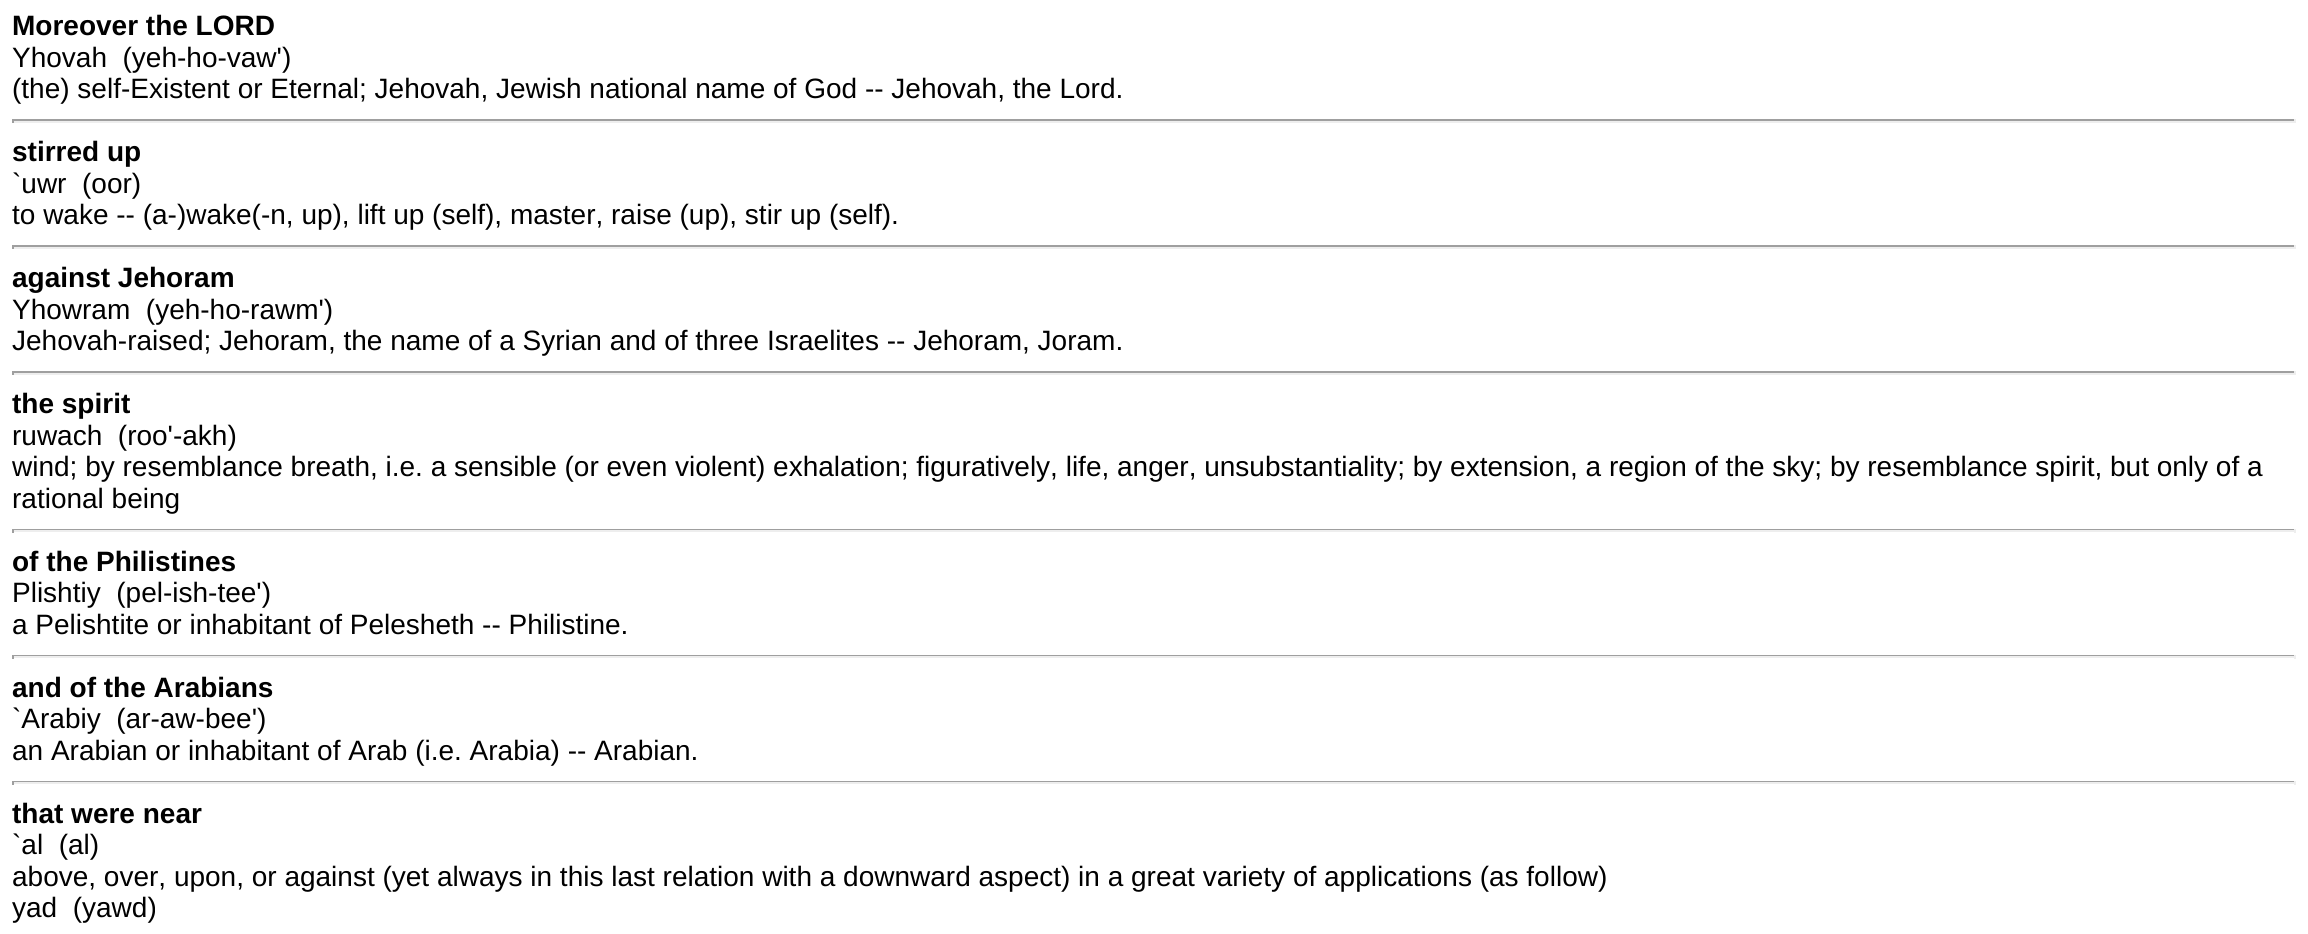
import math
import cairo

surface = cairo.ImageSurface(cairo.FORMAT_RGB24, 2308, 934)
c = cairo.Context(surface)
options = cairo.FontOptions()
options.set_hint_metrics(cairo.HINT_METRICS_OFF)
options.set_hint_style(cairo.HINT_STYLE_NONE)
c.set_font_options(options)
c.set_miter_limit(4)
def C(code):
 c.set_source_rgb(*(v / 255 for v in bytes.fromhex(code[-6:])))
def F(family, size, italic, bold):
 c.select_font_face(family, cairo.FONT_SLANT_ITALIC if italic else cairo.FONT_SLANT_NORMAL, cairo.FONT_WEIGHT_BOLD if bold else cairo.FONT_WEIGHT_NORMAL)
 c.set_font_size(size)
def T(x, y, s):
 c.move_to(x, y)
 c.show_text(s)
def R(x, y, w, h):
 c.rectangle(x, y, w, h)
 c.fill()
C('ffffff')
c.paint()
F('Liberation Sans',28,0,1)
C('000000')
T(12,35,'Moreover the LORD')
F('Liberation Sans',28,0,0)
T(12,67,'Yhovah  (yeh-ho-vaw\')')
T(12,98,'(the) self-Existent or Eternal; Jehovah, Jewish national name of God -- Jehovah, the Lord.')
C('9f9f9f')
R(12,119,2284,2)
C('eeeeee')
R(2294,119,2,4)
R(12,121,2284,2)
C('9f9f9f')
R(12,119,2,4)
F('Liberation Sans',28,0,1)
C('000000')
T(12,161,'stirred up')
F('Liberation Sans',28,0,0)
T(12,193,'`uwr  (oor)')
T(12,224,'to wake -- (a-)wake(-n, up), lift up (self), master, raise (up), stir up (self).')
C('9f9f9f')
R(12,245,2284,2)
C('eeeeee')
R(2294,245,2,4)
R(12,247,2284,2)
C('9f9f9f')
R(12,245,2,4)
F('Liberation Sans',28,0,1)
C('000000')
T(12,287,'against Jehoram')
F('Liberation Sans',28,0,0)
T(12,319,'Yhowram  (yeh-ho-rawm\')')
T(12,350,'Jehovah-raised; Jehoram, the name of a Syrian and of three Israelites -- Jehoram, Joram.')
C('9f9f9f')
R(12,371,2284,2)
C('eeeeee')
R(2294,371,2,4)
R(12,373,2284,2)
C('9f9f9f')
R(12,371,2,4)
F('Liberation Sans',28,0,1)
C('000000')
T(12,413,'the spirit')
F('Liberation Sans',28,0,0)
T(12,445,'ruwach  (roo\'-akh)')
T(12,476,'wind; by resemblance breath, i.e. a sensible (or even violent) exhalation; figuratively, life, anger, unsubstantiality; by extension, a region of the sky; by resemblance spirit, but only of a')
T(12,508,'rational being')
C('9f9f9f')
R(12,529,2284,1)
C('eeeeee')
R(2294,529,2,4)
R(12,530,2284,2)
C('9f9f9f')
R(12,529,2,4)
F('Liberation Sans',28,0,1)
C('000000')
T(12,571,'of the Philistines')
F('Liberation Sans',28,0,0)
T(12,602,'Plishtiy  (pel-ish-tee\')')
T(12,634,'a Pelishtite or inhabitant of Pelesheth -- Philistine.')
C('9f9f9f')
R(12,655,2284,1)
C('eeeeee')
R(2294,655,2,4)
R(12,656,2284,2)
C('9f9f9f')
R(12,655,2,4)
F('Liberation Sans',28,0,1)
C('000000')
T(12,697,'and of the Arabians')
F('Liberation Sans',28,0,0)
T(12,728,'`Arabiy  (ar-aw-bee\')')
T(12,760,'an Arabian or inhabitant of Arab (i.e. Arabia) -- Arabian.')
C('9f9f9f')
R(12,781,2284,1)
C('eeeeee')
R(2294,781,2,4)
R(12,782,2284,2)
C('9f9f9f')
R(12,781,2,4)
F('Liberation Sans',28,0,1)
C('000000')
T(12,823,'that were near')
F('Liberation Sans',28,0,0)
T(12,854,'`al  (al)')
T(12,886,'above, over, upon, or against (yet always in this last relation with a downward aspect) in a great variety of applications (as follow)')
T(12,917,'yad  (yawd)')
surface.write_to_png('o.png')
